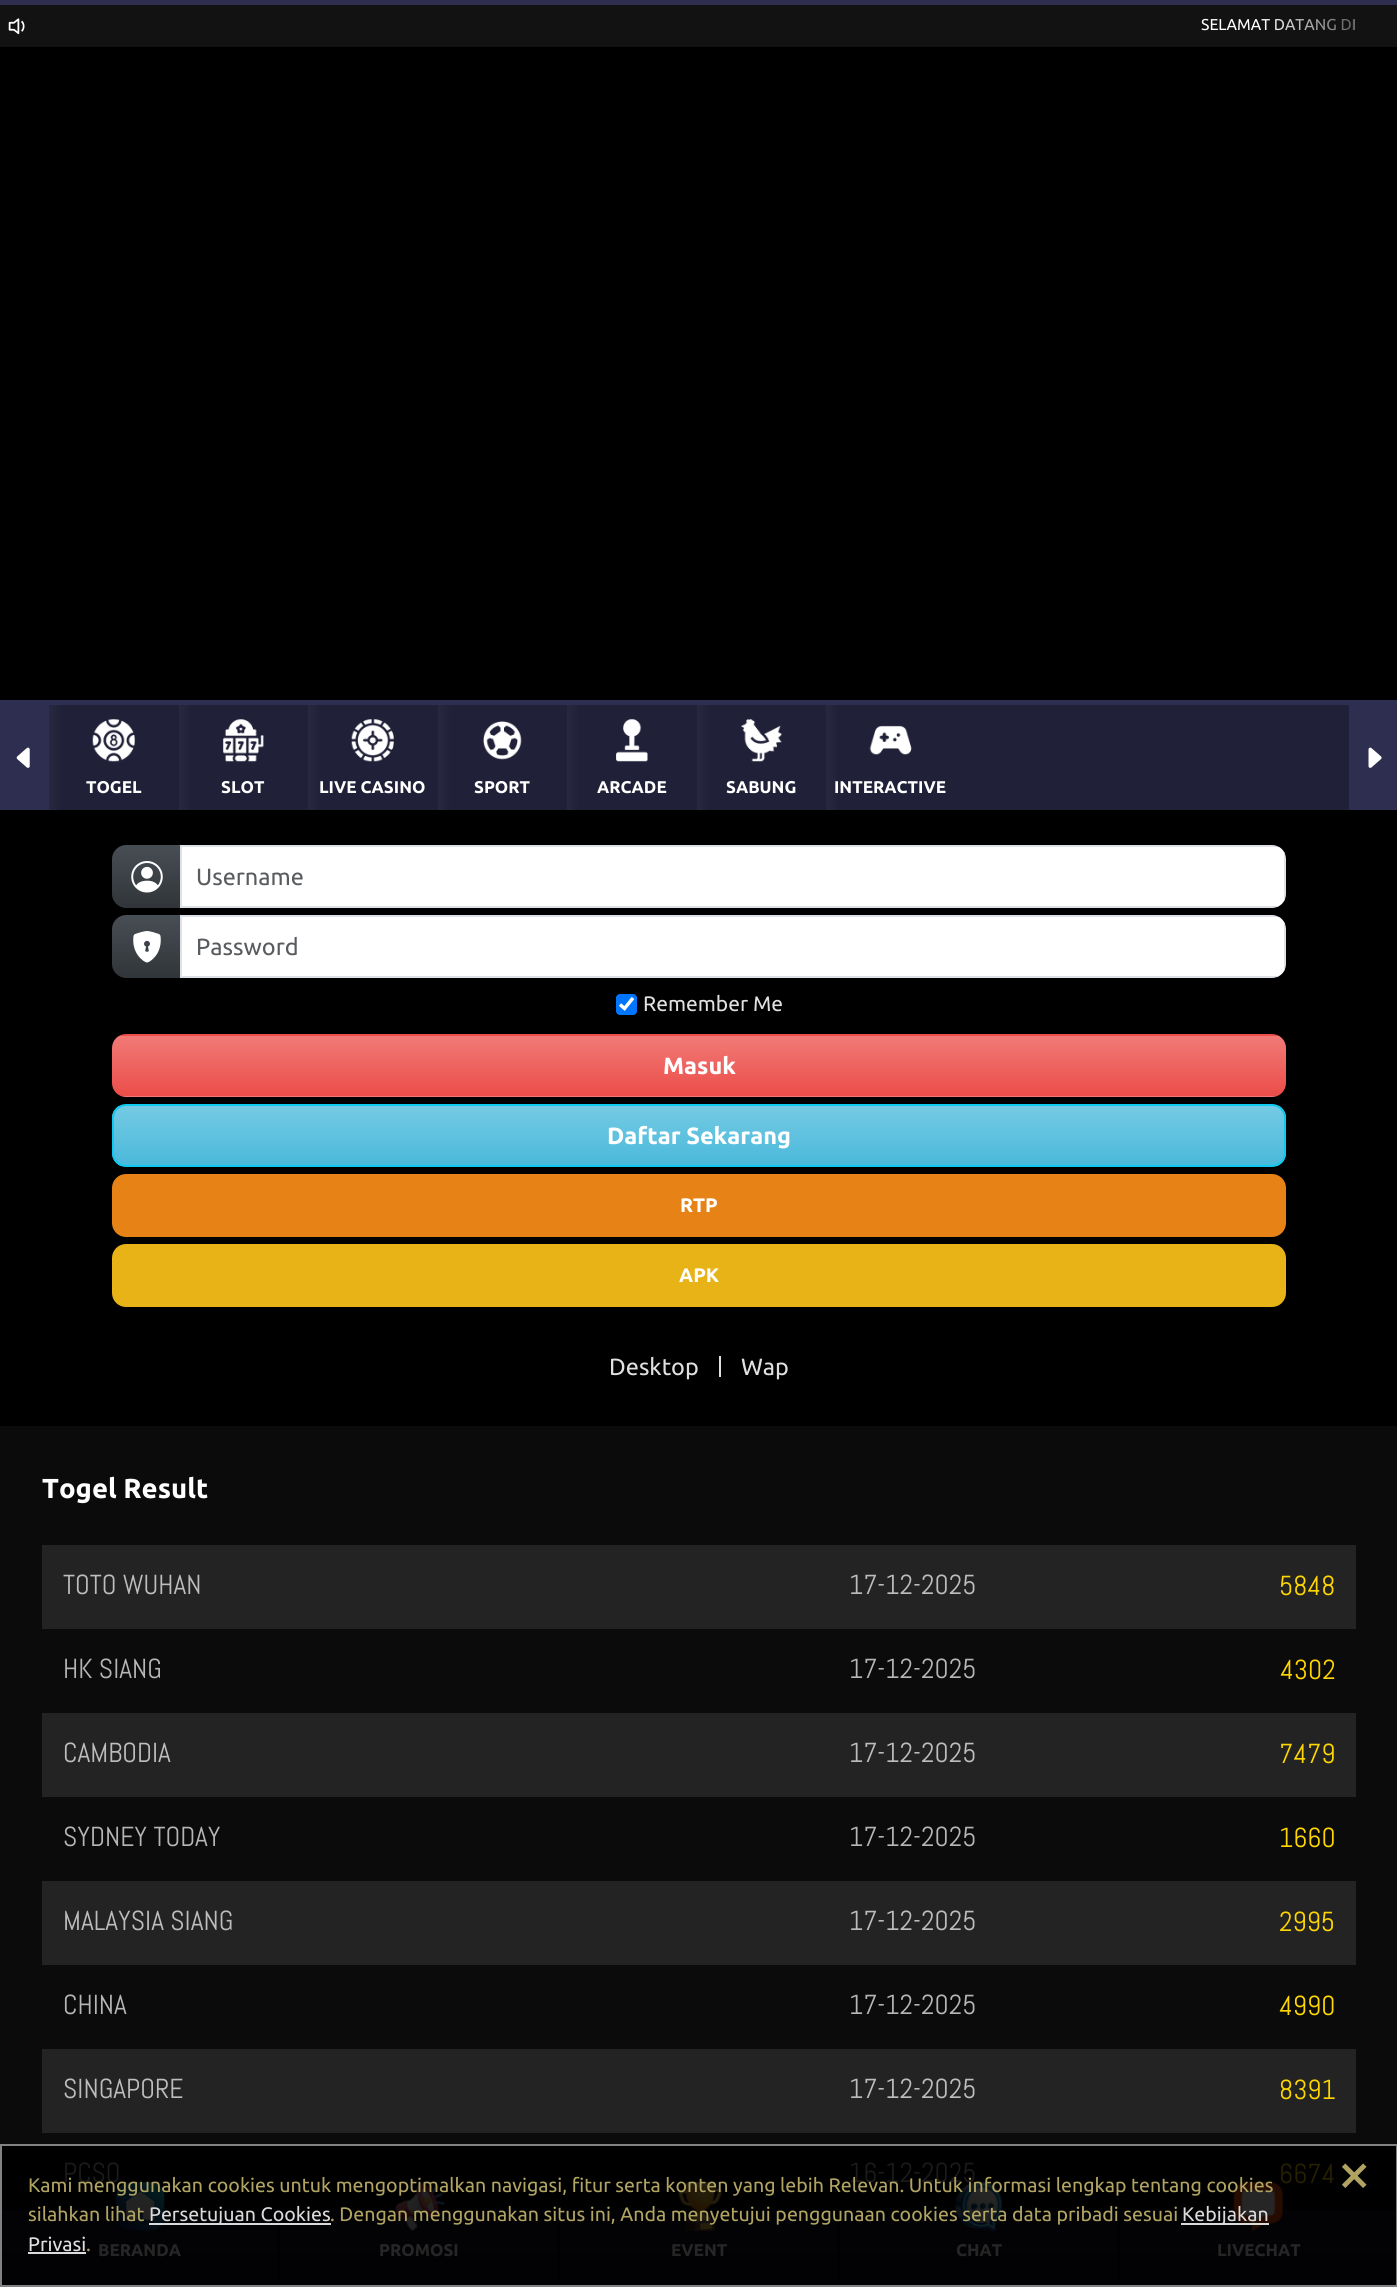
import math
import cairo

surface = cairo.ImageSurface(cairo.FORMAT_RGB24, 1397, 2287)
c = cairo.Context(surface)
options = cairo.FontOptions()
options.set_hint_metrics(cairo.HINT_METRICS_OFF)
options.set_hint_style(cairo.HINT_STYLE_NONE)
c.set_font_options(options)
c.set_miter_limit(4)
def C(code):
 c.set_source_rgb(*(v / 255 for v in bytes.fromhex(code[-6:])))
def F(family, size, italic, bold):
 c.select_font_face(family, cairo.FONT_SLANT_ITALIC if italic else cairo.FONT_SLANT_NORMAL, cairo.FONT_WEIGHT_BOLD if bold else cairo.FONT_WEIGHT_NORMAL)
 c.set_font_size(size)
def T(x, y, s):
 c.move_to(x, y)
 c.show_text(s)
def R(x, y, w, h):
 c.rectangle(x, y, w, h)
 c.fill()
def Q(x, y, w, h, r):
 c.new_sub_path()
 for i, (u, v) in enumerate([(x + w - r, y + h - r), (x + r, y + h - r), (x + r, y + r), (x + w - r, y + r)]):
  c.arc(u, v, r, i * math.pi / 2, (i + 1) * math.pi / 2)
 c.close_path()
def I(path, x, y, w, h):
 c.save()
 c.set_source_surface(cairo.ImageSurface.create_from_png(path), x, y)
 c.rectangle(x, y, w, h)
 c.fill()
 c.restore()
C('000000')
c.paint()
C('121212')
R(0,5,1397,42)
C('2e2e50')
R(0,0,1397,5)
I('1.png',8,18,17,17)
F('Ubuntu',15.75,0,0)
C('ffffff')
T(1201,30,'SELAMAT DATANG DI')
gradient = cairo.LinearGradient(35,26,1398,26)
gradient.add_color_stop_rgba(0,0.071,0.071,0.071,1)
gradient.add_color_stop_rgba(.1,0.071,0.071,0.071,0)
gradient.add_color_stop_rgba(.9,0.071,0.071,0.071,0)
gradient.add_color_stop_rgba(1,0.071,0.071,0.071,1)
c.set_source(gradient)
R(1263,18,91,13)
C('2e2e50')
R(0,700,1397,5)
R(0,705,49,105)
I('2.png',16,747,14,21)
gradient = cairo.LinearGradient(49,758,1349,758)
gradient.add_color_stop_rgba(0,0.157,0.157,0.251,1)
gradient.add_color_stop_rgba(.1,0.125,0.125,0.22,1)
gradient.add_color_stop_rgba(1,0.125,0.125,0.22,1)
c.set_source(gradient)
R(956,705,393,105)
gradient = cairo.LinearGradient(49,760,179,760)
gradient.add_color_stop_rgba(0,0.157,0.157,0.251,1)
gradient.add_color_stop_rgba(.1,0.125,0.125,0.22,1)
gradient.add_color_stop_rgba(1,0.125,0.125,0.22,1)
c.set_source(gradient)
R(49,705,130,105)
I('3.png',92,719,43,43)
F('Ubuntu',17,0,1)
C('ffffff')
T(86,793,'TOGEL')
gradient = cairo.LinearGradient(179,760,308,760)
gradient.add_color_stop_rgba(0,0.157,0.157,0.251,1)
gradient.add_color_stop_rgba(.1,0.125,0.125,0.22,1)
gradient.add_color_stop_rgba(1,0.125,0.125,0.22,1)
c.set_source(gradient)
R(179,705,129,105)
I('4.png',223,719,41,43)
C('ffffff')
T(221,793,'SLOT')
gradient = cairo.LinearGradient(308,760,438,760)
gradient.add_color_stop_rgba(0,0.157,0.157,0.251,1)
gradient.add_color_stop_rgba(.1,0.125,0.125,0.22,1)
gradient.add_color_stop_rgba(1,0.125,0.125,0.22,1)
c.set_source(gradient)
R(308,705,130,105)
I('5.png',351,719,43,43)
C('ffffff')
T(319,793,'LIVE CASINO')
gradient = cairo.LinearGradient(438,760,567,760)
gradient.add_color_stop_rgba(0,0.157,0.157,0.251,1)
gradient.add_color_stop_rgba(.1,0.125,0.125,0.22,1)
gradient.add_color_stop_rgba(1,0.125,0.125,0.22,1)
c.set_source(gradient)
R(438,705,129,105)
I('6.png',483,721,39,39)
C('ffffff')
T(474,793,'SPORT')
gradient = cairo.LinearGradient(567,760,697,760)
gradient.add_color_stop_rgba(0,0.157,0.157,0.251,1)
gradient.add_color_stop_rgba(.1,0.125,0.125,0.22,1)
gradient.add_color_stop_rgba(1,0.125,0.125,0.22,1)
c.set_source(gradient)
R(567,705,130,105)
I('7.png',616,719,32,43)
C('ffffff')
T(597,793,'ARCADE')
gradient = cairo.LinearGradient(697,760,826,760)
gradient.add_color_stop_rgba(0,0.157,0.157,0.251,1)
gradient.add_color_stop_rgba(.1,0.125,0.125,0.22,1)
gradient.add_color_stop_rgba(1,0.125,0.125,0.22,1)
c.set_source(gradient)
R(697,705,129,105)
I('8.png',741,719,41,43)
C('ffffff')
T(726,793,'SABUNG')
gradient = cairo.LinearGradient(826,760,956,760)
gradient.add_color_stop_rgba(0,0.157,0.157,0.251,1)
gradient.add_color_stop_rgba(.1,0.125,0.125,0.22,1)
gradient.add_color_stop_rgba(1,0.125,0.125,0.22,1)
c.set_source(gradient)
R(826,705,130,105)
I('9.png',869,725,43,30)
C('ffffff')
T(834,793,'INTERACTIVE')
C('2e2e50')
R(1349,705,48,105)
I('10.png',1368,747,14,21)
gradient = cairo.LinearGradient(147,845,147,908)
gradient.add_color_stop_rgba(0,0.282,0.306,0.333,1)
gradient.add_color_stop_rgba(.6,0.227,0.247,0.267,1)
gradient.add_color_stop_rgba(1,0.192,0.208,0.224,1)
c.set_source(gradient)
c.new_path()
c.move_to(126,845)
c.line_to(182,845)
c.line_to(182,908)
c.line_to(126,908)
c.curve_to(118.5,908,112,901.5,112,894)
c.line_to(112,859)
c.curve_to(112,851.5,118.5,845,126,845)
c.close_path()
c.fill()
I('11.png',131,861,32,32)
c.save()
Q(112,845,1174,63,14)
c.clip()
C('ffffff')
c.new_path()
c.move_to(182,847)
c.line_to(1281,847)
c.curve_to(1283,847,1285,849,1285,851)
c.line_to(1285,903)
c.curve_to(1285,905,1283,907,1281,907)
c.line_to(182,907)
c.close_path()
c.fill()
c.restore()
C('dee2e6')
c.set_fill_rule(cairo.FILL_RULE_EVEN_ODD)
c.new_path()
c.move_to(180,845)
c.line_to(180,908)
c.line_to(1272,908)
c.curve_to(1275,908,1277,907,1279,906)
c.line_to(182,906)
c.line_to(182,847)
c.line_to(1279,847)
c.curve_to(1277,846,1275,845,1272,845)
c.close_path()
c.move_to(1286,859)
c.curve_to(1286,856,1285,854,1284,852)
c.line_to(1284,901)
c.curve_to(1285,899,1286,897,1286,894)
c.close_path()
c.fill()
F('Ubuntu',23.5,0,0)
C('595c5f')
T(196,885,'Username')
gradient = cairo.LinearGradient(147,915,147,978)
gradient.add_color_stop_rgba(0,0.282,0.306,0.333,1)
gradient.add_color_stop_rgba(.6,0.227,0.247,0.267,1)
gradient.add_color_stop_rgba(1,0.192,0.208,0.224,1)
c.set_source(gradient)
c.new_path()
c.move_to(126,915)
c.line_to(182,915)
c.line_to(182,978)
c.line_to(126,978)
c.curve_to(118.5,978,112,971.5,112,964)
c.line_to(112,929)
c.curve_to(112,921.5,118.5,915,126,915)
c.close_path()
c.fill()
I('12.png',133,931,28,32)
c.save()
c.set_fill_rule(cairo.FILL_RULE_WINDING)
Q(112,915,1174,63,14)
c.clip()
C('ffffff')
c.new_path()
c.move_to(182,917)
c.line_to(1281,917)
c.curve_to(1283,917,1285,919,1285,921)
c.line_to(1285,973)
c.curve_to(1285,975,1283,977,1281,977)
c.line_to(182,977)
c.close_path()
c.fill()
c.restore()
C('dee2e6')
c.new_path()
c.move_to(180,915)
c.line_to(180,978)
c.line_to(1272,978)
c.curve_to(1275,978,1277,977,1279,976)
c.line_to(182,976)
c.line_to(182,917)
c.line_to(1279,917)
c.curve_to(1277,916,1275,915,1272,915)
c.close_path()
c.move_to(1286,929)
c.curve_to(1286,926,1285,924,1284,922)
c.line_to(1284,971)
c.curve_to(1285,969,1286,967,1286,964)
c.close_path()
c.fill()
C('595c5f')
T(196,955,'Password')
C('0075ff')
Q(616,994,21,21,4)
c.fill()
c.new_path()
c.move_to(620,1004.5)
c.line_to(624.5,1008.5)
c.line_to(633,998)
C('ffffff')
c.set_line_width(3.4)
c.stroke()
F('Ubuntu',21,0,0)
C('e0e0e0')
T(643,1011,'Remember Me')
c.save()
c.set_fill_rule(cairo.FILL_RULE_WINDING)
Q(112,1034,1174,63,14)
c.clip()
gradient = cairo.LinearGradient(699,977,699,1036)
gradient.add_color_stop_rgba(0,0.945,0.478,0.467,1)
gradient.add_color_stop_rgba(.6,0.933,0.373,0.357,1)
gradient.add_color_stop_rgba(1,0.925,0.302,0.286,1)
c.set_source(gradient)
R(112,1034,1174,2)
gradient = cairo.LinearGradient(699,1036,699,1096)
gradient.add_color_stop_rgba(0,0.945,0.478,0.467,1)
gradient.add_color_stop_rgba(.6,0.933,0.373,0.357,1)
gradient.add_color_stop_rgba(1,0.925,0.302,0.286,1)
c.set_source(gradient)
R(112,1036,1174,60)
gradient = cairo.LinearGradient(699,1096,699,1155)
gradient.add_color_stop_rgba(0,0.945,0.478,0.467,1)
gradient.add_color_stop_rgba(.6,0.933,0.373,0.357,1)
gradient.add_color_stop_rgba(1,0.925,0.302,0.286,1)
c.set_source(gradient)
R(121,1096,1156,1)
c.restore()
F('Ubuntu',23.5,0,1)
C('ffffff')
T(663,1074,'Masuk')
c.save()
c.set_fill_rule(cairo.FILL_RULE_WINDING)
Q(112,1104,1174,63,14)
c.clip()
gradient = cairo.LinearGradient(699,1106,699,1166)
gradient.add_color_stop_rgba(0,0.455,0.792,0.89,1)
gradient.add_color_stop_rgba(.6,0.357,0.753,0.871,1)
gradient.add_color_stop_rgba(1,0.29,0.725,0.859,1)
c.set_source(gradient)
R(112,1106,1174,60)
c.restore()
Q(113,1105,1172,61,13)
C('0dcaf0')
c.set_line_width(2)
c.stroke()
C('ffffff')
T(607,1144,'Daftar Sekarang')
C('e78316')
Q(112,1174,1174,63,14)
c.fill()
F('Ubuntu',19.6,0,1)
C('ffffff')
T(680,1212,'RTP')
C('e7b316')
Q(112,1244,1174,63,14)
c.fill()
C('ffffff')
T(679,1282,'APK')
F('Ubuntu',23.5,0,0)
C('e0e0e0')
T(609,1375,'Desktop')
R(719,1356,2,21)
T(741,1375,'Wap')
C('0b0b0b')
R(0,1426,1397,718)
F('Ubuntu',27.5,0,1)
C('ffffff')
T(42,1498,'Togel Result')
C('232323')
R(42,1545,1314,84)
F('Abel',27.5,0,0)
C('bdbdbd')
T(63,1594,'TOTO WUHAN')
T(849,1594,'17-12-2025')
C('ffd700')
T(1279,1595,'5848')
C('b6b6b6')
T(63,1678,'HK SIANG')
T(849,1678,'17-12-2025')
C('ffd700')
T(1280,1679,'4302')
C('232323')
R(42,1713,1314,84)
C('bdbdbd')
T(63,1762,'CAMBODIA')
T(849,1762,'17-12-2025')
C('ffd700')
T(1279,1763,'7479')
C('b6b6b6')
T(63,1846,'SYDNEY TODAY')
T(849,1846,'17-12-2025')
C('ffd700')
T(1279,1847,'1660')
C('232323')
R(42,1881,1314,84)
C('bdbdbd')
T(63,1930,'MALAYSIA SIANG')
T(849,1930,'17-12-2025')
C('ffd700')
T(1279,1931,'2995')
C('b6b6b6')
T(63,2014,'CHINA')
T(849,2014,'17-12-2025')
C('ffd700')
T(1279,2015,'4990')
C('232323')
R(42,2049,1314,84)
C('bdbdbd')
T(63,2098,'SINGAPORE')
T(849,2098,'17-12-2025')
C('ffd700')
T(1279,2099,'8391')
C('1b1b1b')
T(63,2182,'PCSO')
T(849,2182,'16-12-2025')
C('262000')
T(1279,2183,'6674')
gradient = cairo.LinearGradient(699,2287,699,2210)
gradient.add_color_stop_rgba(0,0.008,0.008,0.016,1)
gradient.add_color_stop_rgba(1,0.012,0.012,0.02,1)
c.set_source(gradient)
R(0,2210,1397,77)
I('13.png',115,2182,50,49)
C('000000')
R(278,2217,2,63)
I('14.png',394,2182,51,49)
R(558,2217,2,63)
I('15.png',678,2182,44,49)
R(838,2217,2,63)
I('16.png',954,2182,49,49)
R(1118,2217,2,63)
I('17.png',1233,2182,50,49)
c.rectangle(1,2145,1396,141)
c.set_source_rgba(0.6,0.6,0.6,0.85)
c.stroke()
F('Ubuntu',19.6,0,0)
C('b1a463')
T(28,2192,'Kami menggunakan cookies untuk mengoptimalkan navigasi, fitur serta konten yang lebih Relevan. Untuk informasi lengkap tentang cookies')
T(28,2221,'silahkan lihat')
c.set_source_rgba(1,1,1,0.85)
R(149,2223,182,2)
C('dadada')
T(149,2221,'Persetujuan Cookies')
C('b1a463')
T(330,2221,'. Dengan menggunakan situs ini, Anda menyetujui penggunaan cookies serta data pribadi sesuai')
c.set_source_rgba(1,1,1,0.85)
R(1181,2223,88,2)
C('dadada')
T(1182,2221,'Kebijakan')
C('e0e0e0')
T(28,2251,'Privasi')
C('dbdbdd')
R(28,2252,58,2)
C('b1a463')
T(86,2251,'.')
F('Ubuntu',61,0,0)
T(1337,2194,'×')
F('Ubuntu',17,0,1)
C('262626')
T(98,2256,'BERANDA')
T(379,2256,'PROMOSI')
T(671,2256,'EVENT')
T(956,2256,'CHAT')
T(1217,2256,'LIVECHAT')
surface.write_to_png('o.png')
